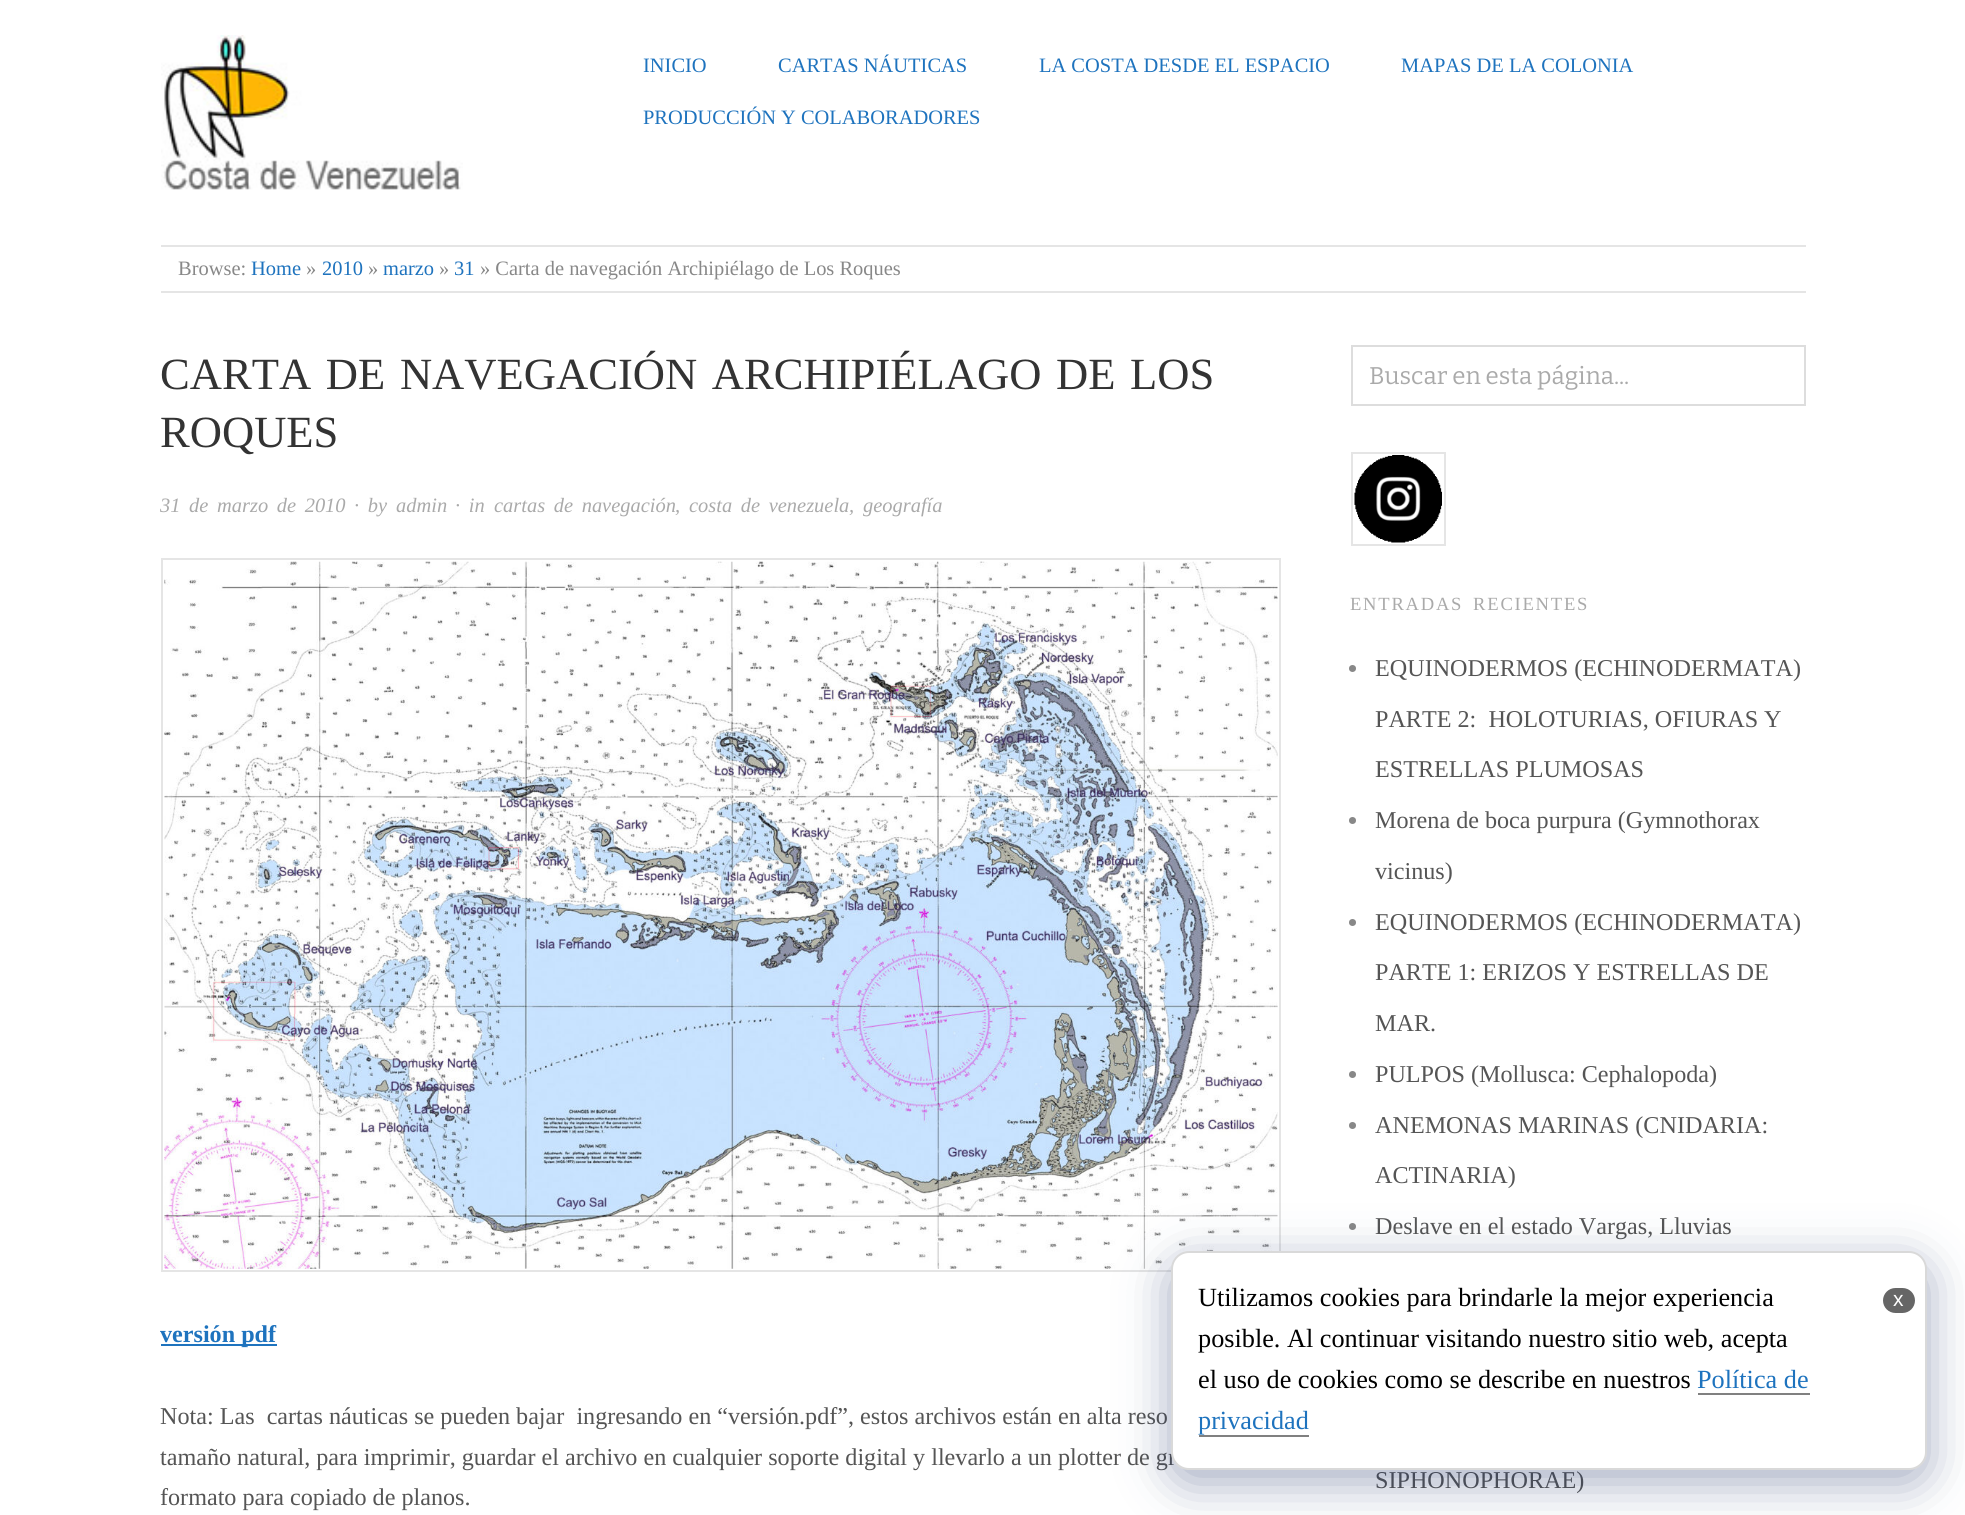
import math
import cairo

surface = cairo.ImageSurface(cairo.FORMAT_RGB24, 1965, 1515)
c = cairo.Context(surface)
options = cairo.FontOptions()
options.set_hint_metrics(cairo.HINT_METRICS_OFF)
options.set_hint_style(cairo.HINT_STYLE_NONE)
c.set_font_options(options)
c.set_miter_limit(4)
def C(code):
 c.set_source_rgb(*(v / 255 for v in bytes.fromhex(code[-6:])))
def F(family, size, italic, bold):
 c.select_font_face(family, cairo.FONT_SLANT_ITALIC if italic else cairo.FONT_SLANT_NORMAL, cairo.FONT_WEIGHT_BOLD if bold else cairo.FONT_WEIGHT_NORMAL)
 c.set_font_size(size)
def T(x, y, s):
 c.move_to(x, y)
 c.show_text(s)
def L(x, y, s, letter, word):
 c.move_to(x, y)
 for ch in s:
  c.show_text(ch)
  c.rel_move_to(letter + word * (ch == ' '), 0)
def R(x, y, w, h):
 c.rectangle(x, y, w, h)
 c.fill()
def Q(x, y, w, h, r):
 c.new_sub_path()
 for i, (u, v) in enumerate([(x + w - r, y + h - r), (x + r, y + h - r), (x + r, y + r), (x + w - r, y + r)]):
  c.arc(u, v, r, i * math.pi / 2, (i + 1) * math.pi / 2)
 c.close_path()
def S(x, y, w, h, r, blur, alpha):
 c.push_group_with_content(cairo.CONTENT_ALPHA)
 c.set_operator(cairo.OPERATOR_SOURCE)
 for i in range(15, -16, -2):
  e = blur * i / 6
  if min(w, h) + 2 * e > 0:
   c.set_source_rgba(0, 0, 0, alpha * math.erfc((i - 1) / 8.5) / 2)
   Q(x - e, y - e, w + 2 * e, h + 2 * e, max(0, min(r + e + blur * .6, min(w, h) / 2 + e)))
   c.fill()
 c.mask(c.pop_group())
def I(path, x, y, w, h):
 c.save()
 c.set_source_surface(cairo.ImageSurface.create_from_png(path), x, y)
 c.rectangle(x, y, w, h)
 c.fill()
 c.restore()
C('ffffff')
c.paint()
I('1.png',161,35,302,155)
F('Liberation Serif',20.45,0,0)
C('1e73be')
T(643,72,'INICIO')
T(778,72,'CARTAS NÁUTICAS')
T(1039,72,'LA COSTA DESDE EL ESPACIO')
T(1401,72,'MAPAS DE LA COLONIA')
T(643,124,'PRODUCCIÓN Y COLABORADORES')
C('e5e5e5')
R(161,245,1645,2)
R(161,291,1645,2)
C('888888')
T(178,275,'Browse:')
C('1e73be')
T(251,275,'Home')
C('888888')
T(306,275,'»')
C('1e73be')
T(322,275,'2010')
C('888888')
T(368,275,'»')
C('1e73be')
T(383,275,'marzo')
C('888888')
T(439,275,'»')
C('1e73be')
T(454,275,'31')
C('888888')
T(480,275,'» Carta de navegación Archipiélago de Los Roques')
F('Liberation Serif',44.6,0,0)
C('333333')
L(160,389,'CARTA DE NAVEGACIÓN ARCHIPIÉLAGO DE LOS',0,3.5)
T(160,447,'ROQUES')
F('Liberation Serif',20.45,1,0)
C('aaaaaa')
L(160,512,'31 de marzo de 2010',0,3.5)
L(354,512,'· by',0,3.5)
T(396,512,'admin')
L(455,512,'· in',0,3.5)
L(494,512,'cartas de navegación',0,3.5)
T(675,512,',')
L(689,512,'costa de venezuela',0,3.5)
T(849,512,',')
T(863,512,'geografía')
c.rectangle(162,559,1118,712)
C('e5e5e5')
c.stroke()
I('2.png',164,561,1114,708)
C('1e73be')
R(161,1344,116,2)
F('Liberation Serif',24.15,0,1)
T(160,1342,'versión pdf')
F('Liberation Serif',24.15,0,0)
C('555555')
T(160,1424,'Nota: Las  cartas náuticas se pueden bajar  ingresando en “versión.pdf”, estos archivos están en alta reso')
T(160,1465,'tamaño natural, para imprimir, guardar el archivo en cualquier soporte digital y llevarlo a un plotter de gr')
T(160,1505,'formato para copiado de planos.')
c.rectangle(1352,346,453,59)
C('dddddd')
c.stroke()
F('Bitter',24.15,0,0)
C('aaaaaa')
T(1369,384,'Buscar en esta página...')
c.rectangle(1352,453,93,92)
C('e5e5e5')
c.stroke()
I('3.png',1354,455,88,88)
F('Liberation Serif',18.6,0,0)
C('aaaaaa')
L(1350,610,'ENTRADAS RECIENTES',1.75,3.5)
C('888888')
c.new_path()
c.arc(1352.5,668.5,3.5,0,2 * math.pi)
c.fill()
F('Liberation Serif',24.15,0,0)
C('555555')
T(1375,676,'EQUINODERMOS (ECHINODERMATA)')
T(1375,727,'PARTE 2:  HOLOTURIAS, OFIURAS Y')
T(1375,777,'ESTRELLAS PLUMOSAS')
C('888888')
c.new_path()
c.arc(1352.5,820.5,3.5,0,2 * math.pi)
c.fill()
C('555555')
T(1375,828,'Morena de boca purpura (Gymnothorax')
T(1375,879,'vicinus)')
C('888888')
c.new_path()
c.arc(1352.5,922.5,3.5,0,2 * math.pi)
c.fill()
C('555555')
T(1375,930,'EQUINODERMOS (ECHINODERMATA)')
T(1375,980,'PARTE 1: ERIZOS Y ESTRELLAS DE')
T(1375,1031,'MAR.')
C('888888')
c.new_path()
c.arc(1352.5,1074.5,3.5,0,2 * math.pi)
c.fill()
C('555555')
T(1375,1082,'PULPOS (Mollusca: Cephalopoda)')
C('888888')
c.new_path()
c.arc(1352.5,1125.5,3.5,0,2 * math.pi)
c.fill()
C('555555')
T(1375,1133,'ANEMONAS MARINAS (CNIDARIA:')
T(1375,1183,'ACTINARIA)')
C('888888')
c.new_path()
c.arc(1352.5,1226.5,3.5,0,2 * math.pi)
c.fill()
C('555555')
T(1375,1234,'Deslave en el estado Vargas, Lluvias')
T(1375,1488,'SIPHONOPHORAE)')
C('172b63')
S(1171,1264,756,218,18,24.5,.4)
C('ffffff')
Q(1171,1251,756,219,18)
c.fill()
Q(1172,1252,754,217,17)
c.set_source_rgba(0,0,0,0.15)
c.stroke()
F('Liberation Serif',26.25,0,0)
C('000000')
T(1198,1306,'Utilizamos cookies para brindarle la mejor experiencia')
T(1198,1347,'posible. Al continuar visitando nuestro sitio web, acepta')
T(1198,1388,'el uso de cookies como se describe en nuestros')
C('1e73be')
T(1697,1388,'Política de')
C('808080')
R(1698,1393,112,2)
C('1e73be')
T(1198,1429,'privacidad')
C('808080')
R(1199,1435,110,2)
C('666666')
Q(1883,1288,32,25,12.5)
c.fill()
F('Liberation Sans',21,0,0)
C('ffffff')
T(1893,1306,'x')
surface.write_to_png('o.png')
